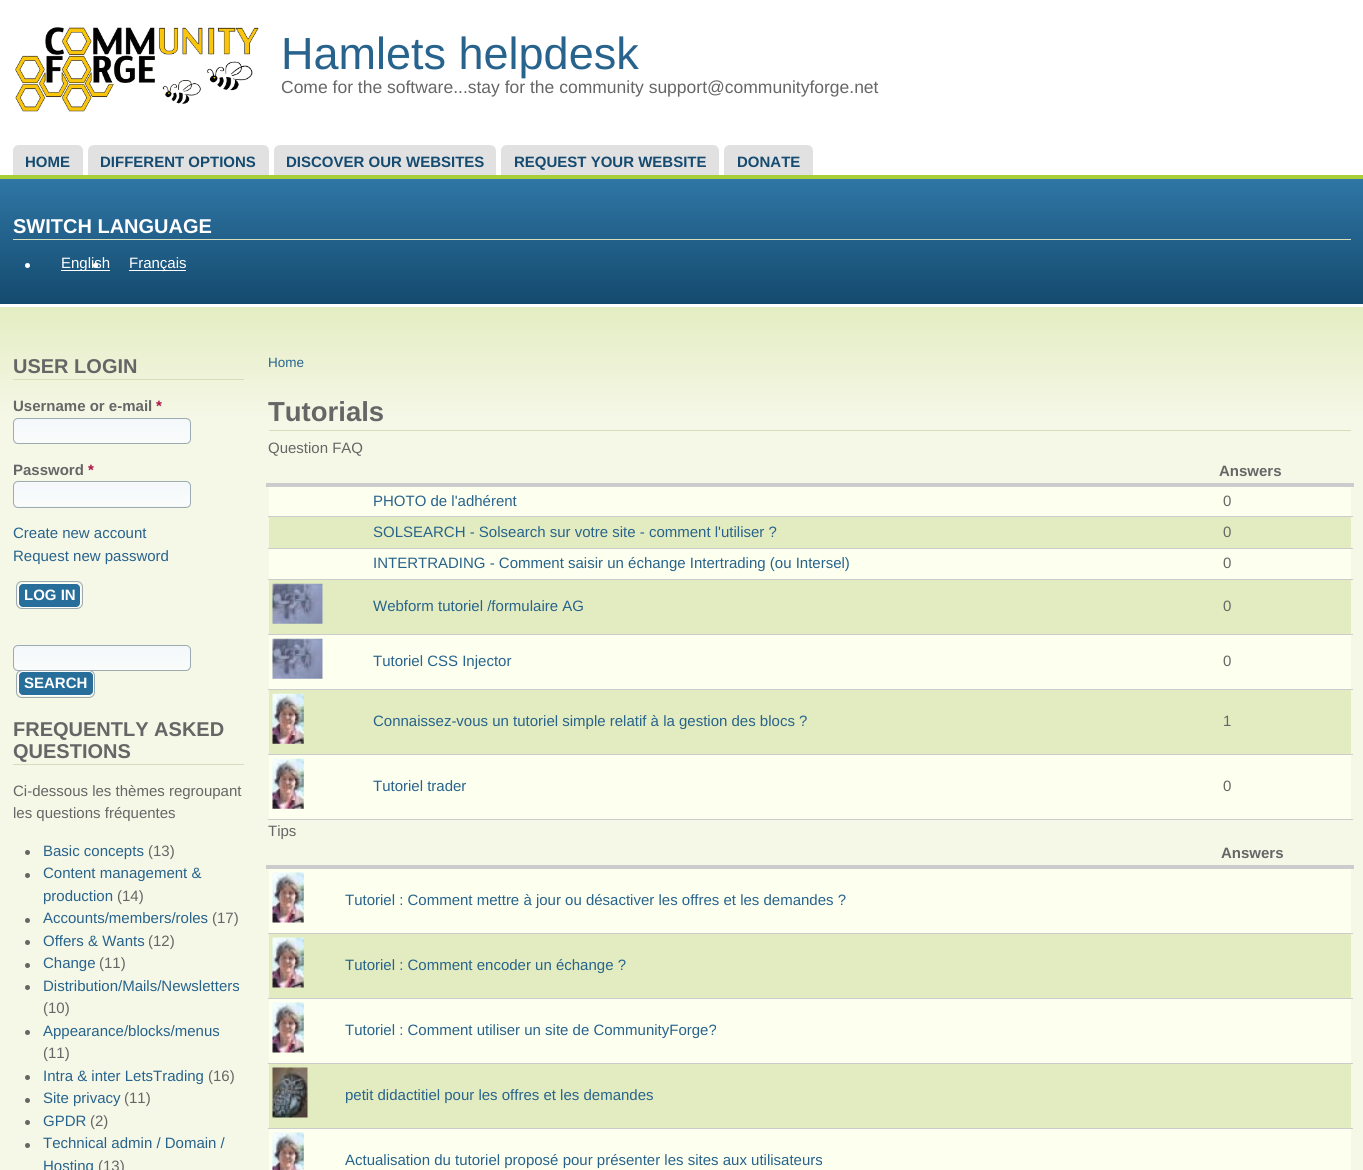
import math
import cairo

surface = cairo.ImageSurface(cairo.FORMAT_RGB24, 1363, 1170)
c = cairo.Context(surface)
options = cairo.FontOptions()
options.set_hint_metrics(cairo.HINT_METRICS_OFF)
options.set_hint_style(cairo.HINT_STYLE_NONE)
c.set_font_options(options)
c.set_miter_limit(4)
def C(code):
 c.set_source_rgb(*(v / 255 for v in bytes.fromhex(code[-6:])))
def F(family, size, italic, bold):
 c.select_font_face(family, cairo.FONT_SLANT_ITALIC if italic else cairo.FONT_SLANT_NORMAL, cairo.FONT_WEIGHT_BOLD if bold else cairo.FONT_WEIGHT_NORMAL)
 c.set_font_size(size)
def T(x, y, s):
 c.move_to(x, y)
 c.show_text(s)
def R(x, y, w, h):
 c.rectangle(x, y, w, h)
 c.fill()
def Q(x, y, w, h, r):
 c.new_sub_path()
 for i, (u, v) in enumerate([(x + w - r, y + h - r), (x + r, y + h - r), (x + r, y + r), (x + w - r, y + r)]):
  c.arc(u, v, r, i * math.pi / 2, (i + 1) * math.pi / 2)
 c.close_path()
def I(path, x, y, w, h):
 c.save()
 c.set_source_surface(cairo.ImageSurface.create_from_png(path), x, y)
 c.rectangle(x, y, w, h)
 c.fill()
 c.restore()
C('ffffff')
c.paint()
I('1.png',15,27,244,85)
F('Liberation Sans',45,0,0)
C('27638c')
T(281,69,'Hamlets helpdesk')
F('Liberation Sans',17.5,0,0)
C('666666')
T(281,93,'Come for the software...stay for the community support@communityforge.net')
C('e1e1e1')
c.new_path()
c.move_to(19,145)
c.line_to(77,145)
c.curve_to(80.5,145,83,147.5,83,151)
c.line_to(83,175)
c.line_to(13,175)
c.line_to(13,151)
c.curve_to(13,147.5,15.5,145,19,145)
c.close_path()
c.fill()
F('Liberation Sans',15,0,1)
C('154b70')
T(25,167,'HOME')
C('e1e1e1')
c.new_path()
c.move_to(94,145)
c.line_to(263,145)
c.curve_to(266.5,145,269,147.5,269,151)
c.line_to(269,175)
c.line_to(88,175)
c.line_to(88,151)
c.curve_to(88,147.5,90.5,145,94,145)
c.close_path()
c.fill()
C('154b70')
T(100,167,'DIFFERENT OPTIONS')
C('e1e1e1')
c.new_path()
c.move_to(280,145)
c.line_to(490,145)
c.curve_to(493.5,145,496,147.5,496,151)
c.line_to(496,175)
c.line_to(274,175)
c.line_to(274,151)
c.curve_to(274,147.5,276.5,145,280,145)
c.close_path()
c.fill()
C('154b70')
T(286,167,'DISCOVER OUR WEBSITES')
C('e1e1e1')
c.new_path()
c.move_to(507,145)
c.line_to(713,145)
c.curve_to(716.5,145,719,147.5,719,151)
c.line_to(719,175)
c.line_to(501,175)
c.line_to(501,151)
c.curve_to(501,147.5,503.5,145,507,145)
c.close_path()
c.fill()
C('154b70')
T(514,167,'REQUEST YOUR WEBSITE')
C('e1e1e1')
c.new_path()
c.move_to(730,145)
c.line_to(807,145)
c.curve_to(810.5,145,813,147.5,813,151)
c.line_to(813,175)
c.line_to(724,175)
c.line_to(724,151)
c.curve_to(724,147.5,726.5,145,730,145)
c.close_path()
c.fill()
C('154b70')
T(737,167,'DONATE')
gradient = cairo.LinearGradient(0,179,0,304)
gradient.add_color_stop_rgba(0,0.184,0.463,0.647,1)
gradient.add_color_stop_rgba(1,0.078,0.29,0.431,1)
c.set_source(gradient)
R(0,179,1363,125)
C('a7ce38')
R(0,175,1363,4)
C('d6ddb9')
R(13,239,1338,1)
F('Liberation Sans',20,0,1)
C('ffffff')
T(13,233,'SWITCH LANGUAGE')
c.new_path()
c.arc(27.5,265.5,2.5,0,2 * math.pi)
c.fill()
R(61,270,49,1)
F('Liberation Sans',15,0,0)
T(61,268,'English')
c.new_path()
c.arc(95.5,265.5,2.5,0,2 * math.pi)
c.fill()
R(129,270,57,1)
T(129,268,'Français')
gradient = cairo.LinearGradient(0,306,0,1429)
gradient.add_color_stop_rgba(0,0.894,0.929,0.761,1)
gradient.add_color_stop_rgba(.1,0.961,0.969,0.906,1)
gradient.add_color_stop_rgba(1,0.961,0.969,0.906,1)
c.set_source(gradient)
R(0,307,1363,863)
C('d6ddb9')
R(13,379,231,1)
F('Liberation Sans',20,0,1)
C('666666')
T(13,373,'USER LOGIN')
F('Liberation Sans',15,0,1)
T(13,411,'Username or e-mail')
C('aa1144')
T(156,411,'*')
c.save()
Q(13,418,178,26,5)
c.clip()
gradient = cairo.LinearGradient(14,419,14,443)
gradient.add_color_stop_rgba(0,0.957,0.973,0.984,1)
gradient.add_color_stop_rgba(1,0.98,0.988,0.984,1)
c.set_source(gradient)
R(13,419,178,24)
c.restore()
Q(13.5,418.5,177,25,4.5)
C('9babb0')
c.set_line_width(1)
c.stroke()
C('666666')
T(13,475,'Password')
C('aa1144')
T(88,475,'*')
c.save()
Q(13,481,178,27,5)
c.clip()
gradient = cairo.LinearGradient(14,459,14,483)
gradient.add_color_stop_rgba(0,0.957,0.973,0.984,1)
gradient.add_color_stop_rgba(1,0.98,0.988,0.984,1)
c.set_source(gradient)
R(13,481,178,2)
gradient = cairo.LinearGradient(14,483,14,506)
gradient.add_color_stop_rgba(0,0.957,0.973,0.984,1)
gradient.add_color_stop_rgba(1,0.98,0.988,0.984,1)
c.set_source(gradient)
R(13,483,178,23)
gradient = cairo.LinearGradient(14,506,14,530)
gradient.add_color_stop_rgba(0,0.957,0.973,0.984,1)
gradient.add_color_stop_rgba(1,0.98,0.988,0.984,1)
c.set_source(gradient)
R(13,506,178,2)
c.restore()
Q(13.5,481.5,177,26,4.5)
C('9babb0')
c.stroke()
F('Liberation Sans',15,0,0)
C('27638c')
T(13,538,'Create new account')
T(13,561,'Request new password')
C('286e9b')
Q(18.5,583.5,62,24,4.5)
c.fill_preserve()
C('ffffff')
c.stroke()
Q(16.5,581.5,66,27,5.5)
C('9babb0')
c.stroke()
F('Liberation Sans',15,0,1)
C('ffffff')
T(24,600,'LOG IN')
c.save()
Q(13,645,178,26,5)
c.clip()
gradient = cairo.LinearGradient(14,646,14,670)
gradient.add_color_stop_rgba(0,0.957,0.973,0.984,1)
gradient.add_color_stop_rgba(1,0.98,0.988,0.984,1)
c.set_source(gradient)
R(13,646,178,24)
c.restore()
Q(13.5,645.5,177,25,4.5)
C('9babb0')
c.stroke()
C('286e9b')
Q(18.5,671.5,75,24,4.5)
c.fill_preserve()
C('ffffff')
c.stroke()
Q(16.5,670.5,78,27,5.5)
C('9babb0')
c.stroke()
C('ffffff')
T(24,688,'SEARCH')
C('d6ddb9')
R(13,764,231,1)
F('Liberation Sans',20,0,1)
C('666666')
T(13,736,'FREQUENTLY ASKED')
T(13,758,'QUESTIONS')
F('Liberation Sans',15,0,0)
T(13,796,'Ci-dessous les thèmes regroupant')
T(13,818,'les questions fréquentes')
c.new_path()
c.arc(27.5,852.5,2.5,0,2 * math.pi)
c.fill()
C('27638c')
T(43,856,'Basic concepts')
C('666666')
T(148,856,'(13)')
c.new_path()
c.arc(27.5,875.5,2.5,0,2 * math.pi)
c.fill()
C('27638c')
T(43,878,'Content management &')
T(43,901,'production')
C('666666')
T(117,901,'(14)')
c.new_path()
c.arc(27.5,920.5,2.5,0,2 * math.pi)
c.fill()
C('27638c')
T(43,923,'Accounts/members/roles')
C('666666')
T(212,923,'(17)')
c.new_path()
c.arc(27.5,942.5,2.5,0,2 * math.pi)
c.fill()
C('27638c')
T(43,946,'Offers & Wants')
C('666666')
T(148,946,'(12)')
c.new_path()
c.arc(27.5,965.5,2.5,0,2 * math.pi)
c.fill()
C('27638c')
T(43,968,'Change')
C('666666')
T(99,968,'(11)')
c.new_path()
c.arc(27.5,987.5,2.5,0,2 * math.pi)
c.fill()
C('27638c')
T(43,991,'Distribution/Mails/Newsletters')
C('666666')
T(43,1013,'(10)')
c.new_path()
c.arc(27.5,1032.5,2.5,0,2 * math.pi)
c.fill()
C('27638c')
T(43,1036,'Appearance/blocks/menus')
C('666666')
T(43,1058,'(11)')
c.new_path()
c.arc(27.5,1077.5,2.5,0,2 * math.pi)
c.fill()
C('27638c')
T(43,1081,'Intra & inter LetsTrading')
C('666666')
T(208,1081,'(16)')
c.new_path()
c.arc(27.5,1100.5,2.5,0,2 * math.pi)
c.fill()
C('27638c')
T(43,1103,'Site privacy')
C('666666')
T(124,1103,'(11)')
c.new_path()
c.arc(27.5,1122.5,2.5,0,2 * math.pi)
c.fill()
C('27638c')
T(43,1126,'GPDR')
C('666666')
T(90,1126,'(2)')
c.new_path()
c.arc(27.5,1145.5,2.5,0,2 * math.pi)
c.fill()
C('27638c')
T(43,1148,'Technical admin / Domain /')
T(43,1171,'Hosting')
C('666666')
T(98,1171,'(13)')
F('Liberation Sans',13.5,0,0)
C('27638c')
T(268,367,'Home')
C('d6ddb9')
R(269,430,1082,1)
F('Liberation Sans',27.5,0,1)
C('666666')
T(268,421,'Tutorials')
F('Liberation Sans',15,0,0)
T(268,453,'Question FAQ')
C('cccccc')
R(266,483,1088,4)
F('Liberation Sans',15,0,1)
C('666666')
T(1219,476,'Answers')
C('fdffef')
R(269,487,1082,29)
C('cccccc')
R(268,516,1085,1)
F('Liberation Sans',15,0,0)
C('27638c')
T(373,506,'PHOTO de l\'adhérent')
C('666666')
T(1223,506,'0')
C('e3ecc0')
R(269,517,1082,31)
C('cccccc')
R(268,548,1085,1)
C('27638c')
T(373,537,'SOLSEARCH - Solsearch sur votre site - comment l\'utiliser ?')
C('666666')
T(1223,537,'0')
C('fdffef')
R(269,549,1082,30)
C('cccccc')
R(268,579,1085,1)
C('27638c')
T(373,568,'INTERTRADING - Comment saisir un échange Intertrading (ou Intersel)')
C('666666')
T(1223,568,'0')
C('e3ecc0')
R(269,580,1082,54)
C('cccccc')
R(268,634,1085,1)
I('2.png',272,583,51,41)
C('27638c')
T(373,611,'Webform tutoriel /formulaire AG')
C('666666')
T(1223,611,'0')
C('fdffef')
R(269,635,1082,54)
C('cccccc')
R(268,689,1085,1)
I('3.png',272,638,51,41)
C('27638c')
T(373,666,'Tutoriel CSS Injector')
C('666666')
T(1223,666,'0')
C('e3ecc0')
R(269,690,1082,64)
C('cccccc')
R(268,754,1085,1)
I('4.png',272,693,32,51)
C('27638c')
T(373,726,'Connaissez-vous un tutoriel simple relatif à la gestion des blocs ?')
C('666666')
T(1223,726,'1')
C('fdffef')
R(269,755,1082,64)
C('cccccc')
R(268,819,1085,1)
I('5.png',272,758,32,51)
C('27638c')
T(373,791,'Tutoriel trader')
C('666666')
T(1223,791,'0')
T(268,836,'Tips')
C('cccccc')
R(266,865,1088,4)
F('Liberation Sans',15,0,1)
C('666666')
T(1221,858,'Answers')
C('fdffef')
R(269,869,1082,64)
C('cccccc')
R(268,933,1085,1)
I('6.png',272,872,32,51)
F('Liberation Sans',15,0,0)
C('27638c')
T(345,905,'Tutoriel : Comment mettre à jour ou désactiver les offres et les demandes ?')
C('e3ecc0')
R(269,934,1082,64)
C('cccccc')
R(268,998,1085,1)
I('7.png',272,937,32,51)
C('27638c')
T(345,970,'Tutoriel : Comment encoder un échange ?')
C('fdffef')
R(269,999,1082,64)
C('cccccc')
R(268,1063,1085,1)
I('6.png',272,1002,32,51)
C('27638c')
T(345,1035,'Tutoriel : Comment utiliser un site de CommunityForge?')
C('e3ecc0')
R(269,1064,1082,64)
C('cccccc')
R(268,1128,1085,1)
I('8.png',272,1067,36,51)
C('27638c')
T(345,1100,'petit didactitiel pour les offres et les demandes')
C('fdffef')
R(269,1129,1082,41)
I('9.png',272,1132,32,38)
C('27638c')
T(345,1165,'Actualisation du tutoriel proposé pour présenter les sites aux utilisateurs')
surface.write_to_png('o.png')
